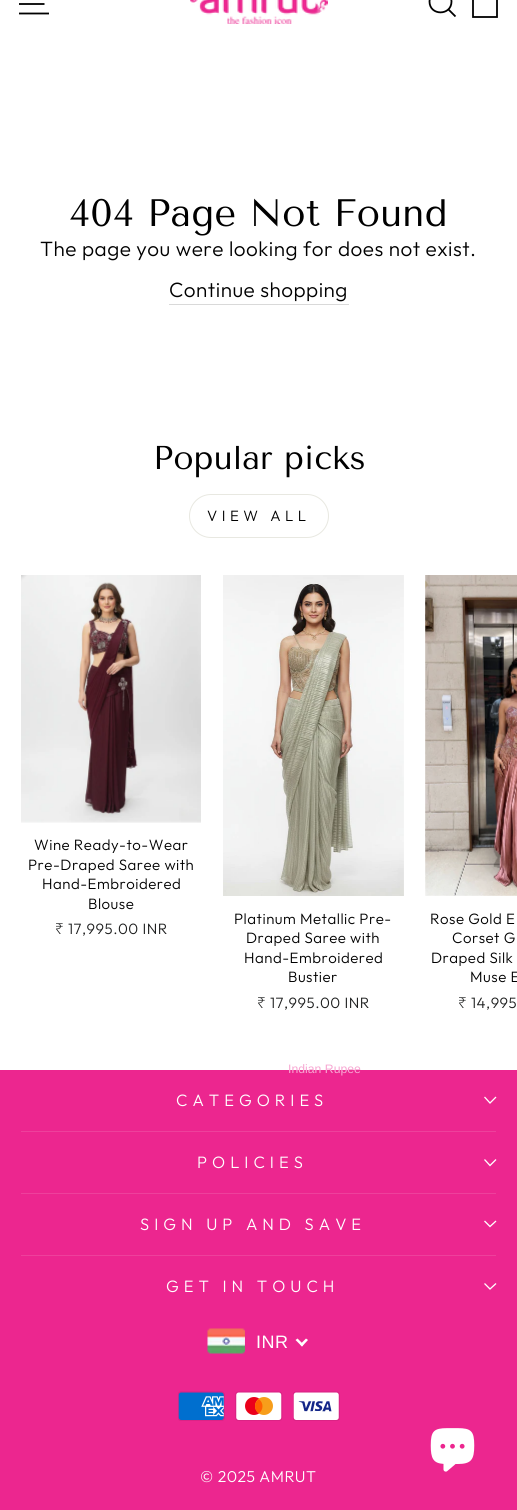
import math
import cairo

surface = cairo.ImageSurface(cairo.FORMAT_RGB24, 517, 1510)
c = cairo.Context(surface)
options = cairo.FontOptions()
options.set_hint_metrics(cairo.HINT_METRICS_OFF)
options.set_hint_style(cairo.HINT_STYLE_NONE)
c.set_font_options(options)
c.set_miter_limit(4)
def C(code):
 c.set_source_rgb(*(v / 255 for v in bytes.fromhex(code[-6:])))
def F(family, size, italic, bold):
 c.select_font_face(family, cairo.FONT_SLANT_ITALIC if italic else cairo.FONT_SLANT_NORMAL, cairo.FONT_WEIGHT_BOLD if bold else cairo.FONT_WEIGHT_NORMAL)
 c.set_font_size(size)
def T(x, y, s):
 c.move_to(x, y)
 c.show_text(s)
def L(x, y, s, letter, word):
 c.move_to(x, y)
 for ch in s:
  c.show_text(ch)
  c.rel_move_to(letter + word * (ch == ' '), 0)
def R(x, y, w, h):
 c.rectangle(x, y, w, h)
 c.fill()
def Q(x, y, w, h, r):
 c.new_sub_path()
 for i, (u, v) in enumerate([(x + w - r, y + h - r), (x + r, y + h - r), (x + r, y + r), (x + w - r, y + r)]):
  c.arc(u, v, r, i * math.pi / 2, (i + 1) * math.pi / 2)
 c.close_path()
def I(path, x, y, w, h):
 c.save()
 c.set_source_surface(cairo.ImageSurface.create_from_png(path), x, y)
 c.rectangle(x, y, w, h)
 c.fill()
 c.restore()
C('ffffff')
c.paint()
c.new_path()
c.move_to(19,-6)
c.line_to(49,-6)
c.move_to(19,4)
c.line_to(44.5,4)
c.move_to(19,13.5)
c.line_to(49,13.5)
C('000000')
c.set_line_width(1.8)
c.stroke()
I('1.png',190,0,138,24)
c.new_path()
c.move_to(451.5,1.5)
c.curve_to(451.5,16,429.5,16,429.5,1.5)
c.curve_to(429.5,-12.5,451.5,-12.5,451.5,1.5)
c.close_path()
c.move_to(455.5,16.5)
c.line_to(448.5,9.5)
c.stroke()
c.new_path()
c.move_to(473,-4.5)
c.line_to(497,-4.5)
c.line_to(497,17)
c.line_to(473,17)
c.close_path()
c.stroke()
F('Tenor Sans',38.25,0,0)
T(69,226,'404 Page Not Found')
F('Outfit Light',20.7,0,0)
L(40,256,'The page you were looking for does not exist.',.5,0)
C('d9d9d9')
R(169,304,180,1)
C('000000')
L(169,297,'Continue shopping',.5,0)
F('Tenor Sans',33,0,0)
T(153,469,'Popular picks')
Q(189.5,494.5,139,43,21.5)
C('e8e8e1')
c.set_line_width(1)
c.stroke()
F('Outfit Light',15,0,0)
C('000000')
L(207,521,'VIEW ALL',4.5,0)
I('2.png',21,575,180,248)
L(34,850,'Wine Ready-to-Wear',.5,0)
L(28,870,'Pre-Draped Saree with',.5,0)
L(42,889,'Hand-Embroidered',.5,0)
L(88,909,'Blouse',.5,0)
F('Noto Sans Light',15,0,0)
C('1c1d1d')
L(55,934,'₹',.5,0)
F('Outfit Light',15,0,0)
L(68,934,'17,995.00 INR',.5,0)
I('3.png',223,575,181,321)
C('000000')
L(234,924,'Platinum Metallic Pre-',.5,0)
L(246,943,'Draped Saree with',.5,0)
L(244,963,'Hand-Embroidered',.5,0)
L(288,982,'Bustier',.5,0)
F('Noto Sans Light',15,0,0)
C('1c1d1d')
L(257,1008,'₹',.5,0)
F('Outfit Light',15,0,0)
L(270,1008,'17,995.00 INR',.5,0)
I('4.png',425,575,92,321)
C('000000')
L(430,924,'Rose Gold E',.5,0)
L(452,943,'Corset G',.5,0)
L(431,963,'Draped Silk',.5,0)
L(470,982,'Muse E',.5,0)
F('Noto Sans Light',15,0,0)
C('1c1d1d')
L(458,1008,'₹',.5,0)
F('Outfit Light',15,0,0)
L(471,1008,'14,995',.5,0)
C('ec268f')
R(0,1070,517,440)
F('Liberation Sans',12.25,0,0)
C('f7a7d2')
T(288,1073,'Indian Rupee')
I('5.png',207,1328,38,26)
F('Liberation Sans',18,0,0)
C('ffffff')
L(256,1348,'INR',.5,0)
c.new_path()
c.move_to(306,1338.5)
c.line_to(308,1340)
c.line_to(302,1346.5)
c.line_to(300,1344.5)
c.close_path()
c.fill()
c.new_path()
c.move_to(297.5,1338.5)
c.line_to(303.5,1344.5)
c.line_to(302,1346.5)
c.line_to(295.5,1340)
c.close_path()
c.fill()
F('Outfit Light',16.5,0,0)
L(176,1106,'CATEGORIES',5,0)
c.new_path()
c.move_to(484.5,1097)
c.line_to(490,1103)
c.line_to(496,1097)
c.set_line_width(1.3)
c.stroke()
C('ee409c')
R(21,1131,475,1)
C('ffffff')
L(197,1168,'POLICIES',5,0)
c.new_path()
c.move_to(484.5,1159.5)
c.line_to(490,1165.5)
c.line_to(496,1159.5)
c.stroke()
C('ee409c')
R(21,1193,475,1)
C('ffffff')
L(140,1230,'SIGN UP AND SAVE',5,0)
c.new_path()
c.move_to(484.5,1221)
c.line_to(490,1226.5)
c.line_to(496,1221)
c.stroke()
C('ee409c')
R(21,1255,475,1)
C('ffffff')
L(166,1292,'GET IN TOUCH',5,0)
c.new_path()
c.move_to(484.5,1283.5)
c.line_to(490,1289)
c.line_to(496,1283.5)
c.stroke()
I('6.png',178,1391,47,30)
I('7.png',235,1391,48,30)
I('8.png',293,1391,47,30)
F('Outfit Light',15.75,0,0)
L(200,1482,'© 2025 AMRUT',.5,0)
I('9.png',430,1428,45,44)
surface.write_to_png('o.png')
